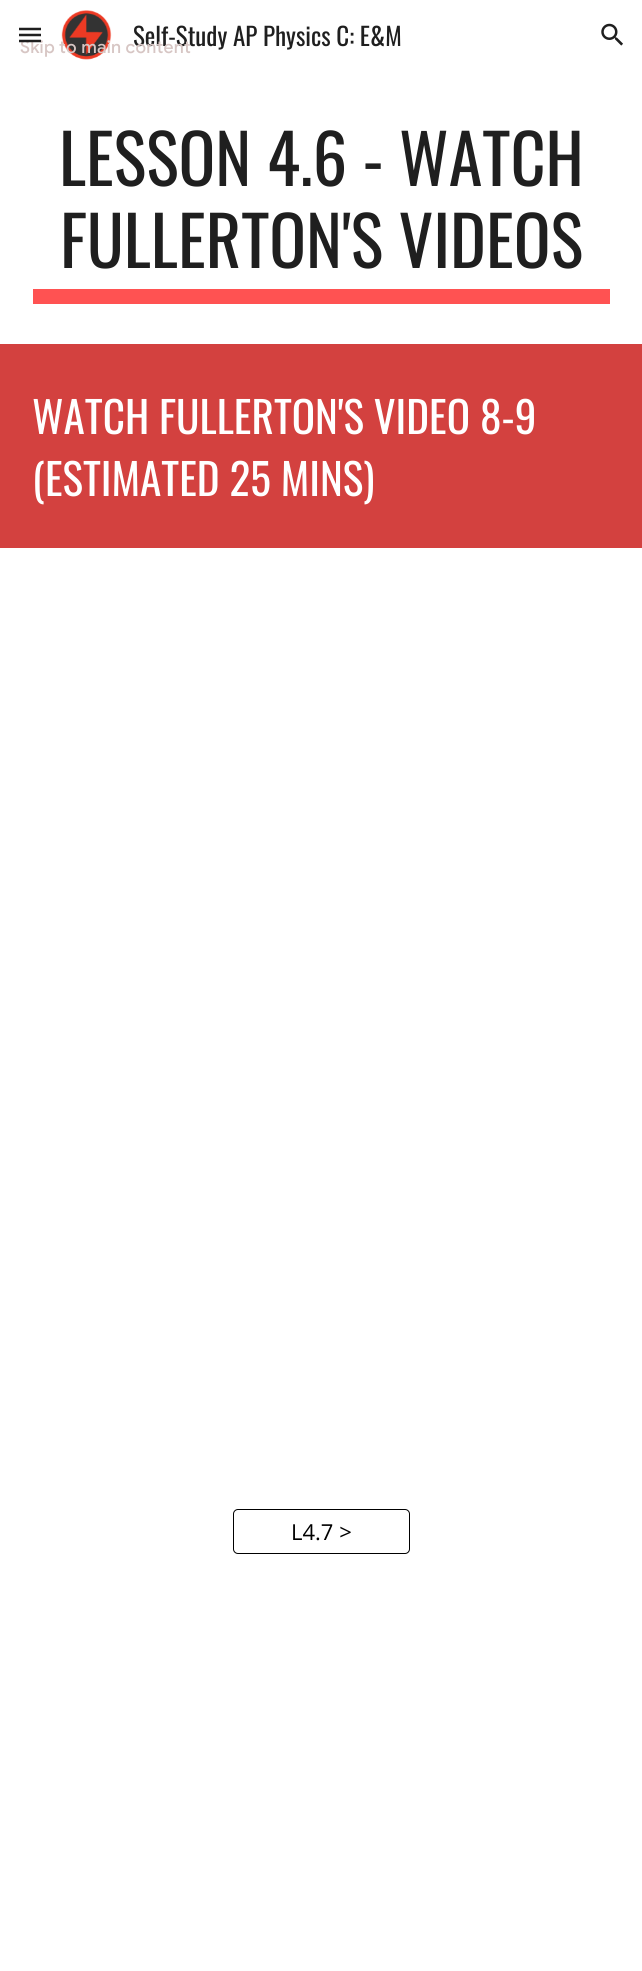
import math
import cairo

surface = cairo.ImageSurface(cairo.FORMAT_RGB24, 642, 1971)
c = cairo.Context(surface)
options = cairo.FontOptions()
options.set_hint_metrics(cairo.HINT_METRICS_OFF)
options.set_hint_style(cairo.HINT_STYLE_NONE)
c.set_font_options(options)
c.set_miter_limit(4)
def C(code):
 c.set_source_rgb(*(v / 255 for v in bytes.fromhex(code[-6:])))
def F(family, size, italic, bold):
 c.select_font_face(family, cairo.FONT_SLANT_ITALIC if italic else cairo.FONT_SLANT_NORMAL, cairo.FONT_WEIGHT_BOLD if bold else cairo.FONT_WEIGHT_NORMAL)
 c.set_font_size(size)
def T(x, y, s):
 c.move_to(x, y)
 c.show_text(s)
def L(x, y, s, letter, word):
 c.move_to(x, y)
 for ch in s:
  c.show_text(ch)
  c.rel_move_to(letter + word * (ch == ' '), 0)
def R(x, y, w, h):
 c.rectangle(x, y, w, h)
 c.fill()
def Q(x, y, w, h, r):
 c.new_sub_path()
 for i, (u, v) in enumerate([(x + w - r, y + h - r), (x + r, y + h - r), (x + r, y + r), (x + w - r, y + r)]):
  c.arc(u, v, r, i * math.pi / 2, (i + 1) * math.pi / 2)
 c.close_path()
def I(path, x, y, w, h):
 c.save()
 c.set_source_surface(cairo.ImageSurface.create_from_png(path), x, y)
 c.rectangle(x, y, w, h)
 c.fill()
 c.restore()
C('ffffff')
c.paint()
I('1.png',61,10,51,50)
F('Oswald',25,0,0)
C('1f1f1f')
T(133,46,'Self-Study AP Physics C: E&M')
F('Google Sans Medium',17.5,0,0)
C('d7c6c4')
L(20,53,'Skip to main content',.2,0)
c.new_path()
c.move_to(19,29)
c.line_to(41,29)
c.move_to(19,35)
c.line_to(41,35)
c.move_to(19,41)
c.line_to(41,41)
C('1f1f1f')
c.set_line_width(2.5)
c.stroke()
I('2.png',601,23,22,23)
F('Oswald',68.25,0,0)
T(59,186,'LESSON 4.6 - WATCH')
T(60,268,'FULLERTON\'S VIDEOS')
C('ff5252')
R(33,289,577,15)
C('d3413f')
R(0,344,642,204)
F('Oswald',43.25,0,0)
C('ffffff')
T(32,434,'WATCH FULLERTON\'S VIDEO 8-9')
T(32,496,'(ESTIMATED 25 MINS)')
Q(233.5,1509.5,176,44,4.5)
C('000000')
c.set_line_width(1)
c.stroke()
F('Open Sans',22,0,0)
T(291,1540,'L4.7 >')
surface.write_to_png('o.png')
